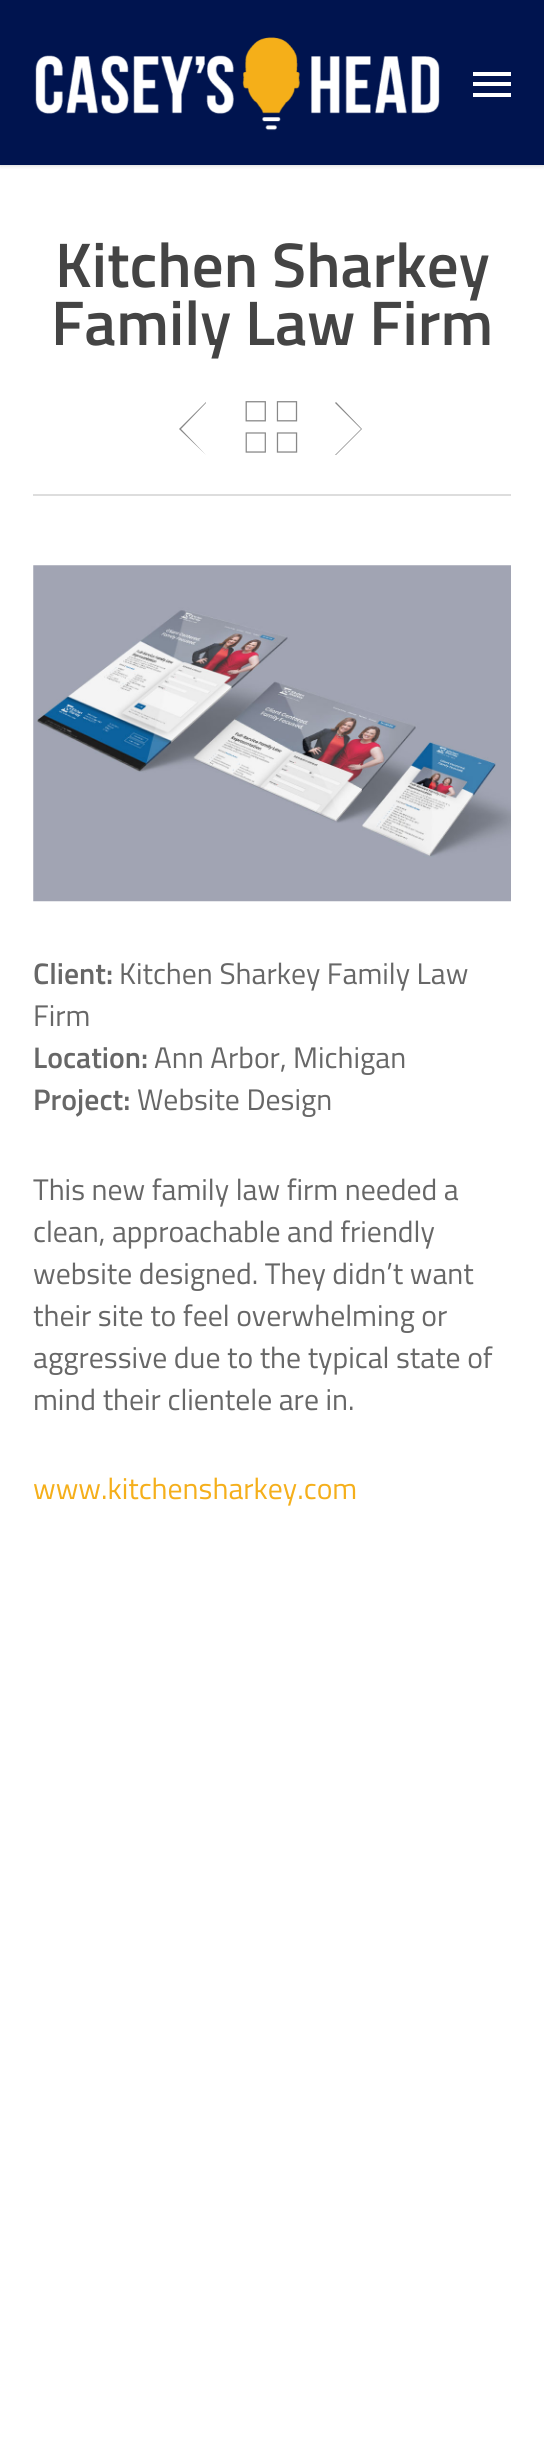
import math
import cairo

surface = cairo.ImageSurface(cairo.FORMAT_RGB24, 544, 2453)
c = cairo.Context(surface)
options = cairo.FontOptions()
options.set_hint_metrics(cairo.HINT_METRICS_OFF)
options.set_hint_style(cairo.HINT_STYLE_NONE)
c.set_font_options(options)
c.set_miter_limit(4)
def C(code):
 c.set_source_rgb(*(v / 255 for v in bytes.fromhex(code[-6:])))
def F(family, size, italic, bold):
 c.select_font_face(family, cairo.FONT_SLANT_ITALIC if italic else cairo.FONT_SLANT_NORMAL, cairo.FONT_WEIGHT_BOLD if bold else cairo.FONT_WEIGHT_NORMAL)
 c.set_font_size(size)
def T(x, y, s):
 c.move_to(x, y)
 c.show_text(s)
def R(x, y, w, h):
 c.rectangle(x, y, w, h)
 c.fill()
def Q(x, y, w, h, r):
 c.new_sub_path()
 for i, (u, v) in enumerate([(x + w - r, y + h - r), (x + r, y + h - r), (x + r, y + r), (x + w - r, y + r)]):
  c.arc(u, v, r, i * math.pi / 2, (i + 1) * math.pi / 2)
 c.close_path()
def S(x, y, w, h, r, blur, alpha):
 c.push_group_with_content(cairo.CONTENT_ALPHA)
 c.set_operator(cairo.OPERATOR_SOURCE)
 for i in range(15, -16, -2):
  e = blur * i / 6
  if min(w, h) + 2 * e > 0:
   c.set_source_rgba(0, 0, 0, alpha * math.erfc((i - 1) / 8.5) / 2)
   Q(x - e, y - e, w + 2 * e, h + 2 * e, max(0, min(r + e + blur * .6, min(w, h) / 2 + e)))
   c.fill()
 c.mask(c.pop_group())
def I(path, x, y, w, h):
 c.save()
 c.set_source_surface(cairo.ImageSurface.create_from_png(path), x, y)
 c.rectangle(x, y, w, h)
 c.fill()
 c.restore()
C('ffffff')
c.paint()
C('00144f')
R(0,0,544,165)
c.save()
c.set_fill_rule(cairo.FILL_RULE_EVEN_ODD)
c.new_path()
c.move_to(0,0)
c.line_to(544,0)
c.line_to(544,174)
c.line_to(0,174)
c.close_path()
c.move_to(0,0)
c.line_to(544,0)
c.line_to(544,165)
c.line_to(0,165)
c.close_path()
c.clip()
C('000000')
S(0,0,544,165,0,2.5,.22)
c.restore()
c.set_source_rgba(0,0.078,0.31,0.92)
R(0,164,544,1)
I('1.png',35,37,405,94)
C('ffffff')
R(473,72,38,4)
R(473,93,38,4)
R(473,82,38,4)
C('dddddd')
R(33,494,478,2)
F('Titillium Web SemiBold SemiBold',63,0,0)
C('444444')
T(55,287,'Kitchen Sharkey')
T(51,345,'Family Law Firm')
I('2.png',245,401,53,52)
C('888888')
c.new_path()
c.move_to(206,403)
c.line_to(206,402)
c.line_to(179,429)
c.line_to(206,455)
c.line_to(181,429)
c.close_path()
c.fill()
c.new_path()
c.move_to(335,403)
c.line_to(336,402)
c.line_to(362,429)
c.line_to(336,455)
c.line_to(335,455)
c.line_to(361,429)
c.close_path()
c.fill()
I('3.png',33,565,478,337)
F('Titillium Web SemiBold SemiBold',29.75,0,0)
C('676767')
T(33,984,'Client:')
F('Titillium Web',29.75,0,0)
T(119,984,'Kitchen Sharkey Family Law')
T(33,1026,'Firm')
F('Titillium Web SemiBold SemiBold',29.75,0,0)
T(33,1068,'Location:')
F('Titillium Web',29.75,0,0)
T(154,1068,'Ann Arbor, Michigan')
F('Titillium Web SemiBold SemiBold',29.75,0,0)
T(33,1110,'Project:')
F('Titillium Web',29.75,0,0)
T(137,1110,'Website Design')
T(33,1200,'This new family law firm needed a')
T(33,1242,'clean, approachable and friendly')
T(33,1284,'website designed. They didn’t want')
T(33,1326,'their site to feel overwhelming or')
T(33,1368,'aggressive due to the typical state of')
T(33,1410,'mind their clientele are in.')
C('f5af1b')
T(33,1499,'www.kitchensharkey.com')
surface.write_to_png('o.png')
